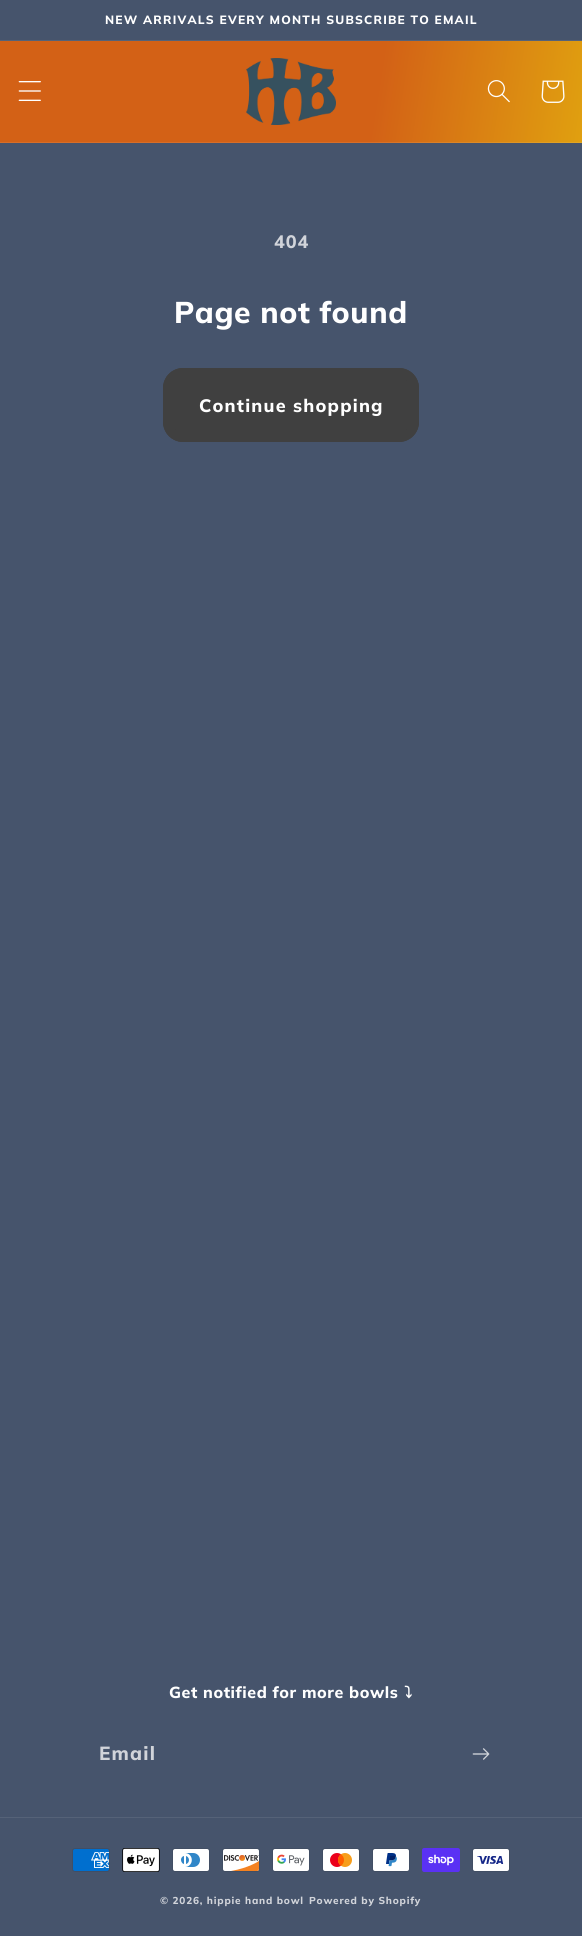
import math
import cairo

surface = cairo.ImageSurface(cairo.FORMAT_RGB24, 582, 1936)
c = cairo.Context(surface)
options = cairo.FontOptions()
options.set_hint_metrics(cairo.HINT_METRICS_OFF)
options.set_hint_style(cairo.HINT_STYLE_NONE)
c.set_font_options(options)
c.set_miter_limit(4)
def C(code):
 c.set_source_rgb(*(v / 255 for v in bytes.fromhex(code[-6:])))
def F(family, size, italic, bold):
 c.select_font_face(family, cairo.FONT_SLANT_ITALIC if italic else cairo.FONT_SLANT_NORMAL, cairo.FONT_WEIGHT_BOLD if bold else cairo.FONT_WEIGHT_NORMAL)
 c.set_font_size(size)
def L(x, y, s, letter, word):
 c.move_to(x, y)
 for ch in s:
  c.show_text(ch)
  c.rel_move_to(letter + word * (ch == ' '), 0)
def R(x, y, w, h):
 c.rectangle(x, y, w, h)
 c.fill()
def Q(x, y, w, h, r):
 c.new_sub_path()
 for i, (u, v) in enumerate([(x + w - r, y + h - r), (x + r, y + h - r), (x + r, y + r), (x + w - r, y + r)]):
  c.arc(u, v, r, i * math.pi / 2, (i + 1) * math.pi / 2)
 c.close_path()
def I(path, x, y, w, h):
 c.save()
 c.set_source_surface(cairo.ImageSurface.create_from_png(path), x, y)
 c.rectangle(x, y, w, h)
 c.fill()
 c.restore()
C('46546c')
c.paint()
C('556278')
R(0,40,582,1)
F('Muli ExtraBold',12,0,0)
C('ffffff')
L(105,24,'NEW ARRIVALS EVERY MONTH SUBSCRIBE TO EMAIL',1.2,0)
gradient = cairo.LinearGradient(-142,899,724,1037)
gradient.add_color_stop_rgba(.44,0.827,0.38,0.086,1)
gradient.add_color_stop_rgba(.79,0.902,0.741,0.051,1)
c.set_source(gradient)
R(0,41,582,101)
gradient = cairo.LinearGradient(-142,899,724,1037)
gradient.add_color_stop_rgba(.44,0.843,0.431,0.161,1)
gradient.add_color_stop_rgba(.79,0.91,0.761,0.125,1)
c.set_source(gradient)
R(0,142,582,1)
I('1.png',18,81,23,20)
I('2.png',246,58,90,67)
I('3.png',487,80,23,23)
I('4.png',541,80,24,23)
F('Muli ExtraBold',18,0,0)
C('d1d4da')
L(274,248,'404',1,0)
F('Muli ExtraBold',30,0,0)
C('ffffff')
L(174,323,'Page not found',.6,0)
C('404040')
Q(163,368,256,74,20)
c.fill()
Q(168,373,246,64,15)
c.set_line_width(10)
c.stroke()
F('Muli ExtraBold',18,0,0)
C('ffffff')
L(199,412,'Continue shopping',1.2,0)
F('Muli ExtraBold',16,0,0)
L(169,1698,'Get notified for more bowls',.6,0)
F('IPAGothic',16,0,1)
L(404,1698,'⤵',.6,0)
F('Muli ExtraBold',19,0,0)
C('d1d4da')
L(99,1760,'Email',1.2,0)
I('5.png',472,1748,18,12)
C('556278')
R(0,1817,582,1)
I('6.png',72,1848,38,24)
I('7.png',122,1848,38,24)
I('8.png',172,1848,38,24)
I('9.png',222,1848,38,24)
I('10.png',272,1848,38,24)
I('11.png',322,1848,38,24)
I('12.png',372,1848,38,24)
I('13.png',422,1848,38,24)
I('14.png',472,1848,38,24)
F('Muli ExtraBold',10,0,0)
C('d1d4da')
L(160,1904,'© 2026, hippie hand bowl',.8,0)
L(309,1904,'Powered by Shopify',.8,0)
surface.write_to_png('o.png')
